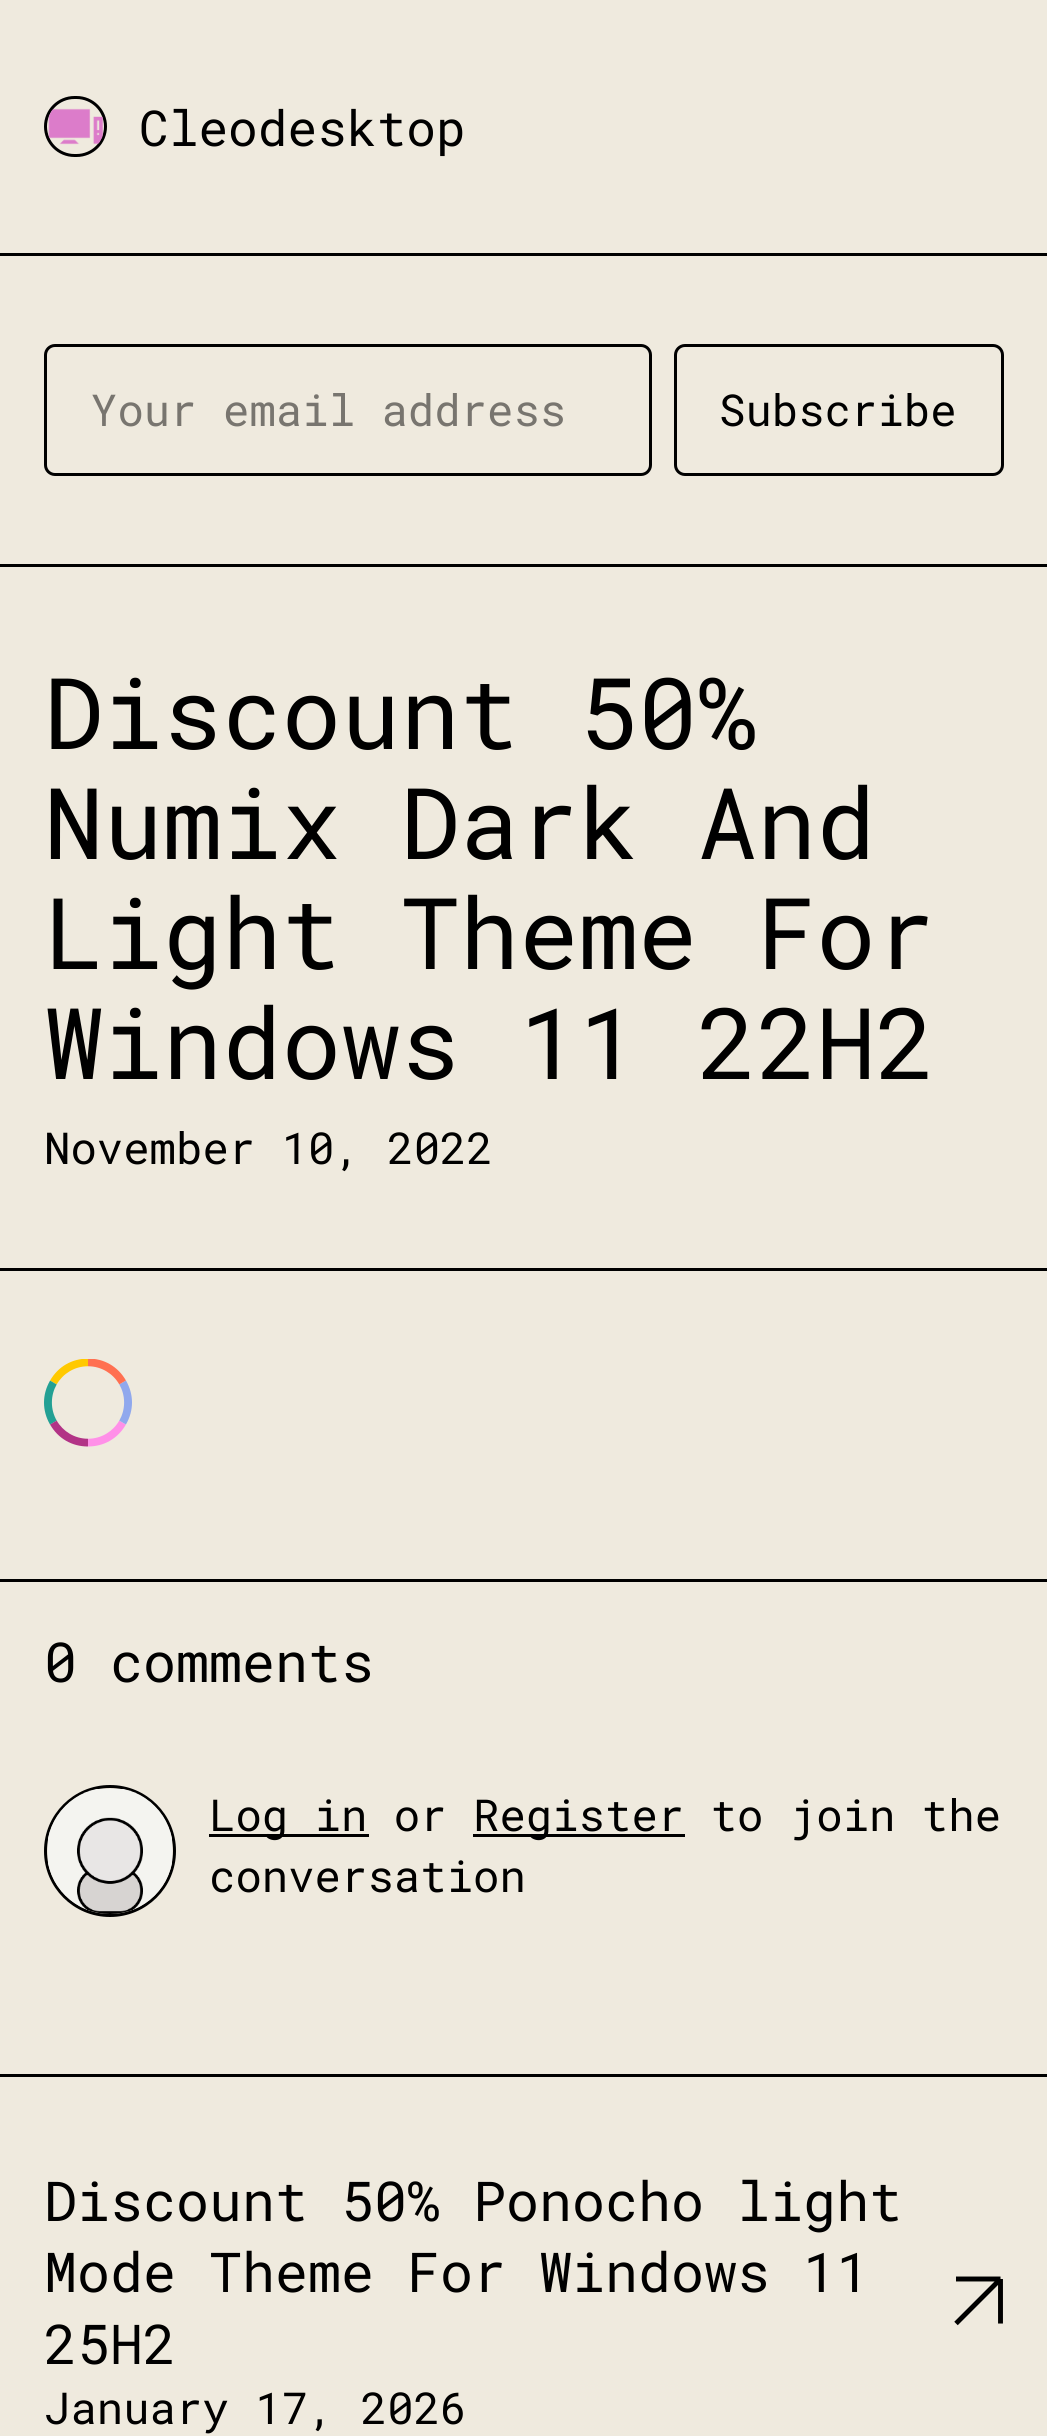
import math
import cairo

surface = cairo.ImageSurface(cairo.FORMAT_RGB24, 1047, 2436)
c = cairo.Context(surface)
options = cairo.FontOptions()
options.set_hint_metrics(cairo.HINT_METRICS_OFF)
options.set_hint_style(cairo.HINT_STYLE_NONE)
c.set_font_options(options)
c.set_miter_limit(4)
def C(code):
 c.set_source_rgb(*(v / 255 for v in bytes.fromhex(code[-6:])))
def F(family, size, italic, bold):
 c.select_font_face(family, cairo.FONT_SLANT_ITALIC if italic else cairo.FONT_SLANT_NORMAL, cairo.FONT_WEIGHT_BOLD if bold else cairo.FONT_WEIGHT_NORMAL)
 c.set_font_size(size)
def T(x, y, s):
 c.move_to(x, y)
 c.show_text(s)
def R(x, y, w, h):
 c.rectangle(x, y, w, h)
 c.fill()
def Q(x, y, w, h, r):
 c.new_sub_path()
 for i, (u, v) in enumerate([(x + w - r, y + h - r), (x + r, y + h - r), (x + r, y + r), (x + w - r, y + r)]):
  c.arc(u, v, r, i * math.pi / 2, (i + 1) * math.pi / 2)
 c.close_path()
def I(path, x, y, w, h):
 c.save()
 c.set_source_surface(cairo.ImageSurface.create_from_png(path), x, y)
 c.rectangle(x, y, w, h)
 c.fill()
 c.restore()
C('efeade')
c.paint()
C('000000')
R(0,253,1047,3)
Q(45.5,97.5,60,58,29)
c.set_line_width(3)
c.stroke()
I('1.png',48,108,56,37)
F('Roboto Mono',49.5,0,0)
T(139,146,'Cleodesktop')
R(0,564,1047,3)
Q(45.5,345.5,605,129,9.5)
c.stroke()
F('Roboto Mono',44,0,0)
C('78756f')
T(91,426,'Your email address')
Q(675.5,345.5,327,129,9.5)
C('000000')
c.stroke()
T(719,426,'Subscribe')
R(0,1268,1047,3)
F('Roboto Mono',99,0,0)
T(44,749,'Discount 50%')
T(44,859,'Numix Dark And')
T(44,969,'Light Theme For')
T(44,1079,'Windows 11 22H2')
F('Roboto Mono',44,0,0)
T(44,1164,'November 10, 2022')
R(0,1579,1047,3)
I('2.png',44,1359,88,88)
R(0,2074,1047,3)
F('Roboto Mono',55,0,0)
T(44,1682,'0 comments')
c.new_path()
c.arc(110,1851,64.5,0,2 * math.pi)
c.stroke()
I('3.png',48,1789,124,125)
R(209,1834,160,3)
F('Roboto Mono',44,0,0)
T(209,1831,'Log in or')
R(473,1834,212,3)
T(473,1831,'Register to join the')
T(209,1892,'conversation')
F('Roboto Mono',55,0,0)
T(44,2221,'Discount 50% Ponocho light')
T(44,2292,'Mode Theme For Windows 11')
T(44,2364,'25H2')
F('Roboto Mono',44,0,0)
T(44,2424,'January 17, 2026')
c.new_path()
c.move_to(956,2323.5)
c.line_to(1000.5,2279)
c.move_to(1000.5,2279)
c.line_to(956,2279)
c.move_to(1000.5,2279)
c.line_to(1000.5,2323.5)
c.set_line_width(4.9)
c.stroke()
surface.write_to_png('o.png')
